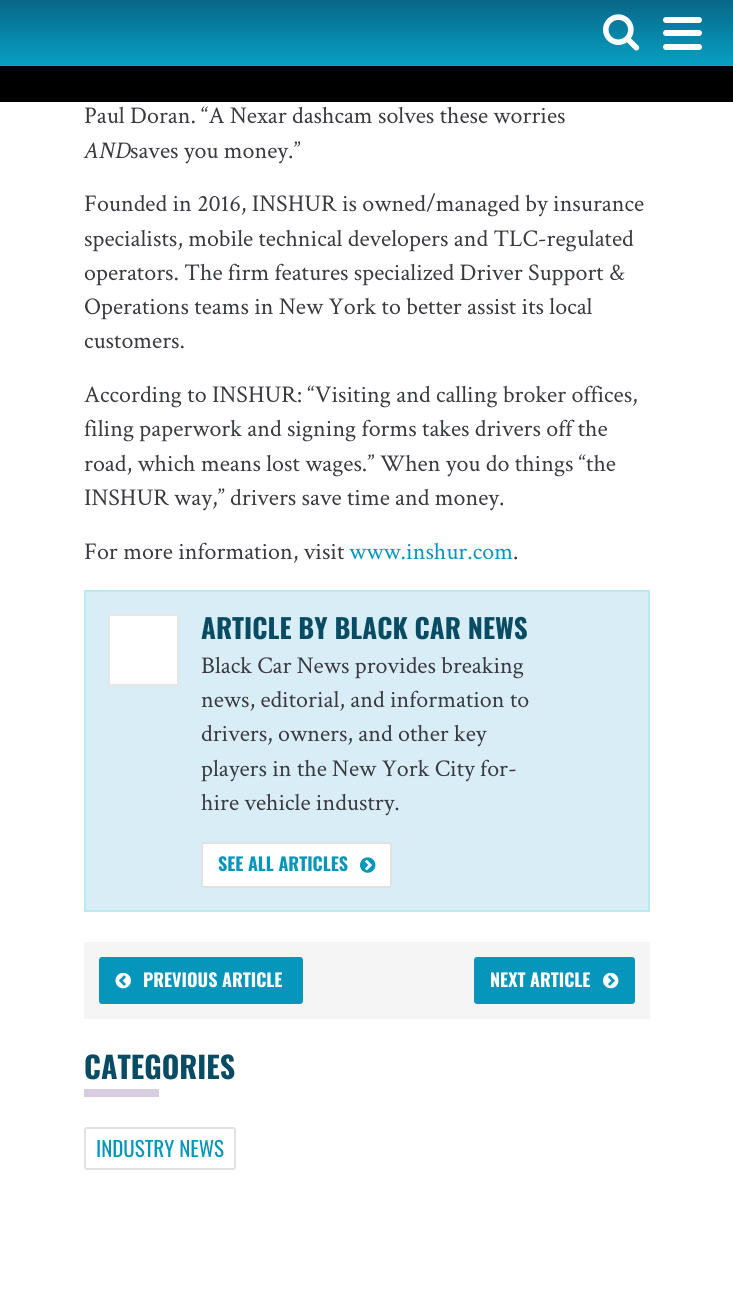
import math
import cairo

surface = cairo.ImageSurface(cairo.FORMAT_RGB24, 733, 1302)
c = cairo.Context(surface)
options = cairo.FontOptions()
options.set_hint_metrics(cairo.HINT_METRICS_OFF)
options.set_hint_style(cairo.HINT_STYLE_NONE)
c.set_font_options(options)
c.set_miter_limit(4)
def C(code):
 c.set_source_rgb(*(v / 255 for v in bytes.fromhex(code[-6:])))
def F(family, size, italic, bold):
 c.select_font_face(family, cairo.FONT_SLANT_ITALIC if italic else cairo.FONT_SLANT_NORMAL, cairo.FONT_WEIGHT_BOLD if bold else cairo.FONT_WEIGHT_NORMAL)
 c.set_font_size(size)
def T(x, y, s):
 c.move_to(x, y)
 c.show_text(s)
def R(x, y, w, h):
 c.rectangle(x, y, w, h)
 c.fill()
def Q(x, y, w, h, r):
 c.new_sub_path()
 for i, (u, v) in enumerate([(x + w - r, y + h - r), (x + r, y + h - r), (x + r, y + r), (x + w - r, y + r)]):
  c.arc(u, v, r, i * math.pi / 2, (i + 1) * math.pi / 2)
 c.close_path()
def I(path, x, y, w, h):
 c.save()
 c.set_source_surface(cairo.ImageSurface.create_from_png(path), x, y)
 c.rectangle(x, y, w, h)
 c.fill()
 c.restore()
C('ffffff')
c.paint()
gradient = cairo.LinearGradient(367,0,367,66)
gradient.add_color_stop_rgba(0,0.031,0.404,0.533,1)
gradient.add_color_stop_rgba(.99,0.027,0.627,0.765,1)
c.set_source(gradient)
R(0,0,733,66)
C('000000')
R(0,66,733,36)
I('1.png',603,14,37,37)
C('ffffff')
Q(663,17,39,6,3)
c.fill()
Q(663,30,39,6,3)
c.fill()
Q(663,44,39,6,3)
c.fill()
F('Crimson Text',24,0,0)
C('393a40')
T(84,123,'Paul Doran. “A Nexar dashcam solves these worries')
F('Crimson Text',24,1,0)
T(84,158,'AND')
F('Crimson Text',24,0,0)
T(130,158,'saves you money.”')
T(84,211,'Founded in 2016, INSHUR is owned/managed by insurance')
T(84,246,'specialists, mobile technical developers and TLC-regulated')
T(84,280,'operators. The firm features specialized Driver Support &')
T(84,314,'Operations teams in New York to better assist its local')
T(84,348,'customers.')
T(84,402,'According to INSHUR: “Visiting and calling broker offices,')
T(84,436,'filing paperwork and signing forms takes drivers off the')
T(84,471,'road, which means lost wages.” When you do things “the')
T(84,505,'INSHUR way,” drivers save time and money.')
T(84,559,'For more information, visit')
C('0796bb')
T(349,559,'www.inshur.com')
C('393a40')
T(513,559,'.')
C('d9edf7')
c.rectangle(85,591,564,320)
c.fill_preserve()
C('bce8f1')
c.stroke()
C('ffffff')
c.rectangle(109,615,69,70)
c.fill_preserve()
C('e6e6e6')
c.stroke()
F('Oswald',27,0,1)
C('084c64')
T(201,639,'ARTICLE BY BLACK CAR NEWS')
F('Crimson Text',24,0,0)
C('393a40')
T(201,673,'Black Car News provides breaking')
T(201,707,'news, editorial, and information to')
T(201,741,'drivers, owners, and other key')
T(201,776,'players in the New York City for-')
T(201,810,'hire vehicle industry.')
C('ffffff')
Q(201,842,191,46,3)
c.fill()
Q(202,843,189,44,2)
c.set_source_rgba(0.224,0.227,0.251,0.15)
c.stroke()
F('Oswald',18,0,1)
C('0796bb')
T(218,871,'SEE ALL ARTICLES')
I('2.png',360,857,16,16)
C('f5f5f5')
R(84,942,566,77)
C('0796bb')
Q(100,958,202,45,2)
c.fill_preserve()
c.stroke()
I('3.png',115,972,16,17)
C('ffffff')
T(143,987,'PREVIOUS ARTICLE')
C('0796bb')
Q(475,958,159,45,2)
c.fill_preserve()
c.stroke()
C('ffffff')
T(490,987,'NEXT ARTICLE')
I('4.png',603,972,16,17)
F('Oswald',30,0,1)
C('084c64')
T(84,1079,'CATEGORIES')
C('d7cce0')
R(84,1089,75,8)
Q(85,1128,150,41,2)
C('e1e1e2')
c.stroke()
F('Oswald',21,0,0)
C('0796bb')
T(96,1157,'INDUSTRY NEWS')
surface.write_to_png('o.png')
